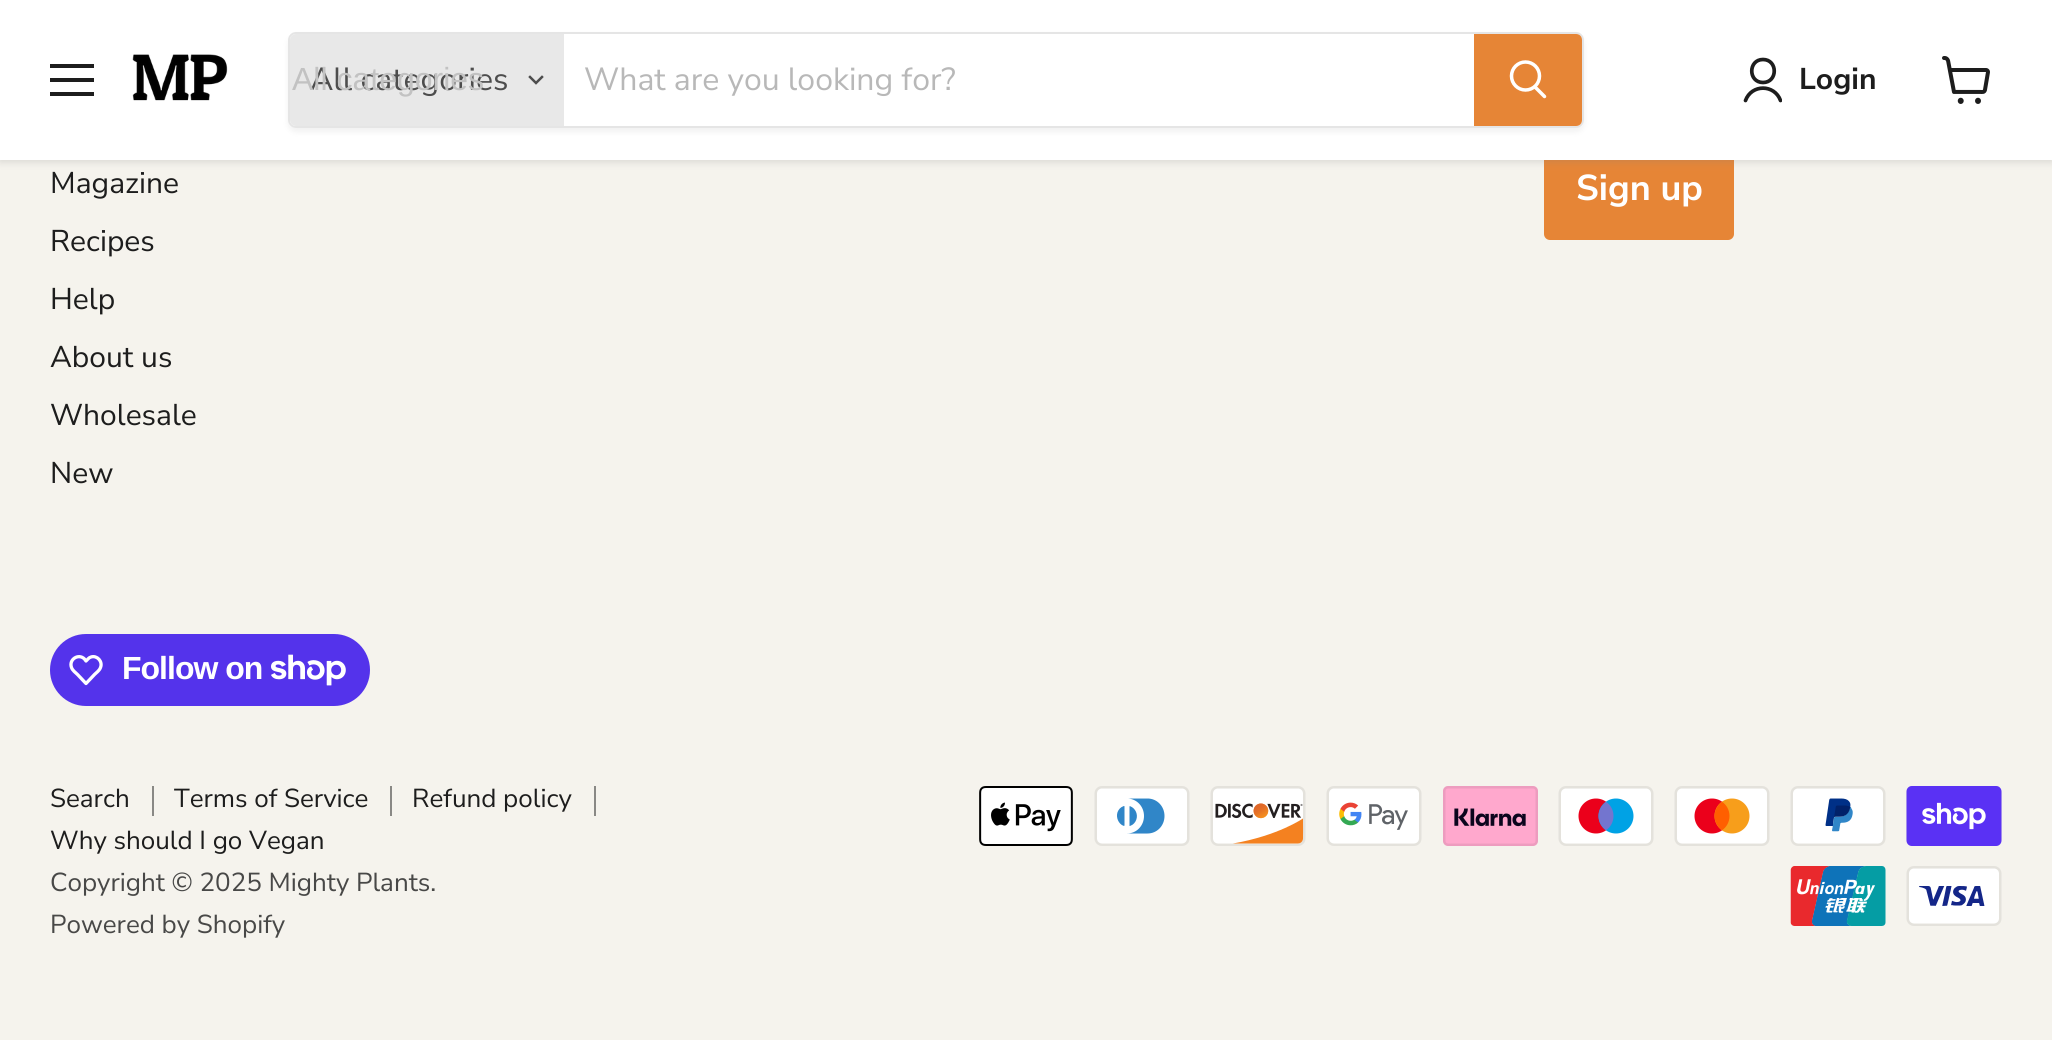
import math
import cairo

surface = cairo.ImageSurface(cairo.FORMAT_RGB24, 2052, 1040)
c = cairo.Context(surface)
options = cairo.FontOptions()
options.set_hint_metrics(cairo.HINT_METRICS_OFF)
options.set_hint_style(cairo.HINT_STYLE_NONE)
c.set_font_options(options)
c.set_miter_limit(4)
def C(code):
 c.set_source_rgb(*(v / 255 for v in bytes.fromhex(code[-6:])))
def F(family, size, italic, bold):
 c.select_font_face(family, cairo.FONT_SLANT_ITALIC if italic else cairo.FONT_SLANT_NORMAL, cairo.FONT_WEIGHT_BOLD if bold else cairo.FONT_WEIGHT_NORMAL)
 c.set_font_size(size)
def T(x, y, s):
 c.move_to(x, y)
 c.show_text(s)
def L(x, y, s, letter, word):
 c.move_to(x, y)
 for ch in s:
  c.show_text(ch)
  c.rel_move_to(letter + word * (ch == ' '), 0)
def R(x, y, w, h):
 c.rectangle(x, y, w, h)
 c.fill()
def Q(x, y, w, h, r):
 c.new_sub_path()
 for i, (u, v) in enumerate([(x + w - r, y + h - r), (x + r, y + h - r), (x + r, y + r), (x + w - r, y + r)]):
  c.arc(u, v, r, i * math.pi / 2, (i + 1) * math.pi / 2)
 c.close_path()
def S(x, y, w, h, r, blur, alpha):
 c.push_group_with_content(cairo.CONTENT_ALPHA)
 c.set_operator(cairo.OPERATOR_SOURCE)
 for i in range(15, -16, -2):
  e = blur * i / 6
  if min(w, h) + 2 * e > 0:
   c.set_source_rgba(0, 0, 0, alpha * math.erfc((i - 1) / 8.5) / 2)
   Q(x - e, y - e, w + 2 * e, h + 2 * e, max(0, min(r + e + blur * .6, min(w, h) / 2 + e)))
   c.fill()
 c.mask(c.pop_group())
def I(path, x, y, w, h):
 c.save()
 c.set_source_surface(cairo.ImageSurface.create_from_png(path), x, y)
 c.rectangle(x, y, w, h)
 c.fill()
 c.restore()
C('f5f3ed')
c.paint()
C('e68536')
Q(1545,139,188,100,5)
c.fill_preserve()
c.stroke()
C('808080')
S(0,2,2052,160,0,4,.25)
C('ffffff')
R(0,0,2052,160)
C('1d1d1d')
R(50,64,44,4)
R(50,78,44,4)
R(50,92,44,4)
I('1.png',132,54,96,47)
c.save()
c.set_fill_rule(cairo.FILL_RULE_EVEN_ODD)
c.new_path()
c.move_to(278,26)
c.line_to(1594,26)
c.line_to(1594,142)
c.line_to(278,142)
c.close_path()
c.move_to(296,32)
c.line_to(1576,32)
c.curve_to(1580.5,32,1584,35.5,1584,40)
c.line_to(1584,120)
c.curve_to(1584,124.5,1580.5,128,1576,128)
c.line_to(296,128)
c.curve_to(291.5,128,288,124.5,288,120)
c.line_to(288,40)
c.curve_to(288,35.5,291.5,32,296,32)
c.close_path()
c.clip()
C('808080')
S(288,36,1296,96,8,3,.11)
c.restore()
Q(289,33,1294,94,7)
c.set_source_rgba(0.502,0.502,0.502,0.2)
c.stroke()
C('e8e8e8')
c.new_path()
c.move_to(296,34)
c.line_to(564,34)
c.line_to(564,126)
c.line_to(296,126)
c.curve_to(292.5,126,290,123.5,290,120)
c.line_to(290,40)
c.curve_to(290,36.5,292.5,34,296,34)
c.close_path()
c.fill()
F('Nunito Sans',32,0,0)
C('4d4d4d')
T(310,90,'All categories')
F('Liberation Sans',32,0,0)
C('c2c2c2')
T(292,90,'All categories')
c.new_path()
c.move_to(536,83)
c.line_to(542,77)
c.move_to(536,83)
c.line_to(530,77)
C('4d4d4d')
c.set_line_width(2.5)
c.set_line_cap(cairo.LINE_CAP_SQUARE)
c.stroke()
F('Nunito Sans',32,0,0)
C('b8b8b8')
T(584,90,'What are you looking for?')
C('e68536')
c.new_path()
c.move_to(1475,35)
c.line_to(1576,35)
c.curve_to(1579,35,1581,37,1581,40)
c.line_to(1581,120)
c.curve_to(1581,123,1579,125,1576,125)
c.line_to(1475,125)
c.close_path()
c.fill_preserve()
c.set_line_width(2)
c.set_line_cap(cairo.LINE_CAP_BUTT)
c.stroke()
c.new_path()
c.move_to(1544.5,96.5)
c.line_to(1535,87)
C('ffffff')
c.set_line_width(3.5)
c.set_line_cap(cairo.LINE_CAP_ROUND)
c.stroke()
c.arc(1525.5,76,14,0,2 * math.pi)
c.set_line_cap(cairo.LINE_CAP_BUTT)
c.stroke()
c.new_path()
c.move_to(1763,82.5)
c.curve_to(1778,82.5,1778,59.5,1763,59.5)
c.curve_to(1748,59.5,1748,82.5,1763,82.5)
c.close_path()
C('1d1d1d')
c.set_line_width(3.7)
c.set_line_cap(cairo.LINE_CAP_ROUND)
c.set_line_join(cairo.LINE_JOIN_ROUND)
c.stroke()
c.save()
c.rectangle(1742,56,40,48)
c.clip()
c.new_path()
c.move_to(1780.5,100.5)
c.curve_to(1774.5,84,1751.5,84,1745.5,100.5)
c.stroke()
c.restore()
F('Nunito Sans',30,0,1)
T(1799,89,'Login')
I('2.png',1942,56,48,48)
F('Nunito Sans',30,0,0)
T(50,193,'Magazine')
T(50,251,'Recipes')
T(50,309,'Help')
T(50,367,'About us')
T(50,425,'Wholesale')
T(50,483,'New')
F('Nunito Sans',36,0,1)
C('ffffff')
T(1576,200,'Sign up')
C('5433eb')
Q(50,634,320,72,36)
c.fill()
c.new_path()
c.move_to(84.5,659)
c.line_to(86,661)
c.curve_to(87.5,659.5,89,657.5,91,657)
c.curve_to(97,655,103,661.5,100.5,667.5)
c.curve_to(99.5,670.5,96.5,672.5,94.5,674.5)
c.line_to(86,683.5)
c.line_to(77.5,674.5)
c.curve_to(75.5,672.5,72.5,670.5,71.5,667.5)
c.curve_to(68.5,659.5,78.5,653,84.5,659)
c.close_path()
C('ffffff')
c.set_line_width(3.3)
c.set_line_cap(cairo.LINE_CAP_BUTT)
c.stroke()
F('Liberation Sans',32,0,1)
L(122,679,'Follow on',-1,0)
I('3.png',271,654,75,32)
C('898885')
R(152,786,2,30)
F('Nunito Sans',26,0,0)
C('1d1d1d')
T(50,807,'Search')
C('898885')
R(390,786,2,30)
C('1d1d1d')
T(174,807,'Terms of Service')
C('898885')
R(594,786,2,30)
C('1d1d1d')
T(412,807,'Refund policy')
T(50,849,'Why should I go Vegan')
C('484847')
T(50,891,'Copyright © 2025 Mighty Plants.')
T(50,933,'Powered by Shopify')
I('4.png',979,786,94,60)
I('5.png',1094,786,96,60)
I('6.png',1210,786,96,60)
I('7.png',1326,786,96,60)
I('8.png',1443,786,95,60)
I('9.png',1558,786,96,60)
I('10.png',1674,786,96,60)
I('11.png',1790,786,96,60)
I('12.png',1906,786,96,60)
I('13.png',1790,866,96,60)
I('14.png',1906,866,96,60)
surface.write_to_png('o.png')
